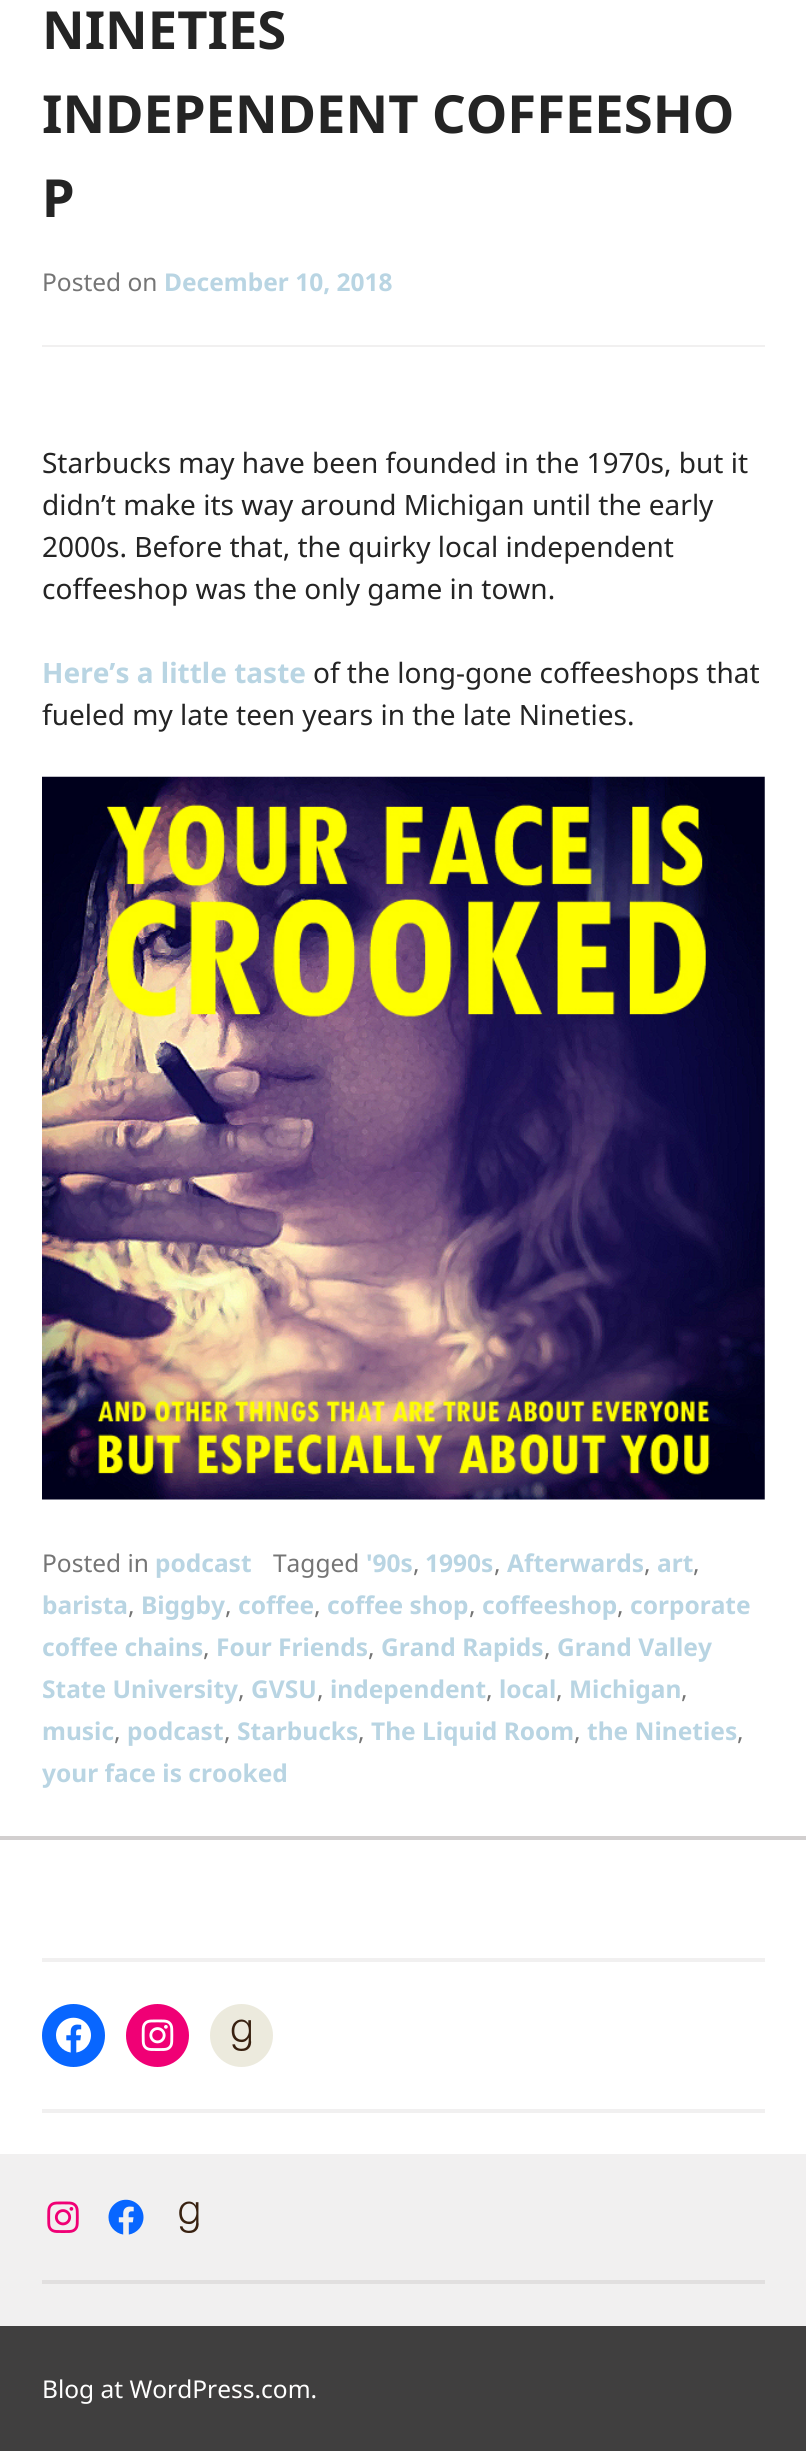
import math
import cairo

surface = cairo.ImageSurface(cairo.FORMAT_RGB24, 806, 2451)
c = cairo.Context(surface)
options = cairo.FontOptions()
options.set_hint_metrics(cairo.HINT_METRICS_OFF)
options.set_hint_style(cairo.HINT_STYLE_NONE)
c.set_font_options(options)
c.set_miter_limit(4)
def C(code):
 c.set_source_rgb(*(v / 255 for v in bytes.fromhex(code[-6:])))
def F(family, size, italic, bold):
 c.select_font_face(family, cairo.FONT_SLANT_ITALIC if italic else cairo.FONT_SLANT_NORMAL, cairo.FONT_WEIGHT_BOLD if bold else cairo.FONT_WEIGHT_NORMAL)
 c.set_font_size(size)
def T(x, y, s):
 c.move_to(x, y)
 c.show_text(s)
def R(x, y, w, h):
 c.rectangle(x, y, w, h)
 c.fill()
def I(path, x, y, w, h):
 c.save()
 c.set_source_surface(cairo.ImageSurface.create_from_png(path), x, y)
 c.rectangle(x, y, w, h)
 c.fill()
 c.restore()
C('ffffff')
c.paint()
F('Noto Sans',52.5,0,1)
C('242424')
T(42,49,'NINETIES')
T(42,133,'INDEPENDENT COFFEESHO')
T(42,217,'P')
C('f1f0f0')
R(42,345,723,2)
F('Noto Sans',24.5,0,0)
C('757575')
T(42,291,'Posted on')
F('Noto Sans',24.5,0,1)
C('b9d5e3')
T(164,291,'December 10, 2018')
F('Noto Sans',28,0,0)
C('242424')
T(42,473,'Starbucks may have been founded in the 1970s, but it')
T(42,515,'didn’t make its way around Michigan until the early')
T(42,557,'2000s. Before that, the quirky local independent')
T(42,599,'coffeeshop was the only game in town.')
F('Noto Sans',28,0,1)
C('b9d5e3')
T(42,683,'Here’s a little taste')
F('Noto Sans',28,0,0)
C('242424')
T(313,683,'of the long-gone coffeeshops that')
T(42,725,'fueled my late teen years in the late Nineties.')
I('1.png',42,776,723,724)
F('Noto Sans',24.5,0,0)
C('757575')
T(42,1572,'Posted in')
F('Noto Sans',24.5,0,1)
C('b9d5e3')
T(155,1572,'podcast')
F('Noto Sans',24.5,0,0)
C('757575')
T(273,1572,'Tagged')
F('Noto Sans',24.5,0,1)
C('b9d5e3')
T(366,1572,'\'90s')
F('Noto Sans',24.5,0,0)
C('757575')
T(413,1572,',')
F('Noto Sans',24.5,0,1)
C('b9d5e3')
T(425,1572,'1990s')
F('Noto Sans',24.5,0,0)
C('757575')
T(494,1572,',')
F('Noto Sans',24.5,0,1)
C('b9d5e3')
T(507,1572,'Afterwards')
F('Noto Sans',24.5,0,0)
C('757575')
T(644,1572,',')
F('Noto Sans',24.5,0,1)
C('b9d5e3')
T(657,1572,'art')
F('Noto Sans',24.5,0,0)
C('757575')
T(693,1572,',')
F('Noto Sans',24.5,0,1)
C('b9d5e3')
T(42,1614,'barista')
F('Noto Sans',24.5,0,0)
C('757575')
T(128,1614,',')
F('Noto Sans',24.5,0,1)
C('b9d5e3')
T(141,1614,'Biggby')
F('Noto Sans',24.5,0,0)
C('757575')
T(225,1614,',')
F('Noto Sans',24.5,0,1)
C('b9d5e3')
T(238,1614,'coffee')
F('Noto Sans',24.5,0,0)
C('757575')
T(314,1614,',')
F('Noto Sans',24.5,0,1)
C('b9d5e3')
T(327,1614,'coffee shop')
F('Noto Sans',24.5,0,0)
C('757575')
T(469,1614,',')
F('Noto Sans',24.5,0,1)
C('b9d5e3')
T(482,1614,'coffeeshop')
F('Noto Sans',24.5,0,0)
C('757575')
T(617,1614,',')
F('Noto Sans',24.5,0,1)
C('b9d5e3')
T(630,1614,'corporate')
T(42,1656,'coffee chains')
F('Noto Sans',24.5,0,0)
C('757575')
T(203,1656,',')
F('Noto Sans',24.5,0,1)
C('b9d5e3')
T(216,1656,'Four Friends')
F('Noto Sans',24.5,0,0)
C('757575')
T(368,1656,',')
F('Noto Sans',24.5,0,1)
C('b9d5e3')
T(381,1656,'Grand Rapids')
F('Noto Sans',24.5,0,0)
C('757575')
T(544,1656,',')
F('Noto Sans',24.5,0,1)
C('b9d5e3')
T(557,1656,'Grand Valley')
T(42,1698,'State University')
F('Noto Sans',24.5,0,0)
C('757575')
T(238,1698,',')
F('Noto Sans',24.5,0,1)
C('b9d5e3')
T(251,1698,'GVSU')
F('Noto Sans',24.5,0,0)
C('757575')
T(317,1698,',')
F('Noto Sans',24.5,0,1)
C('b9d5e3')
T(330,1698,'independent')
F('Noto Sans',24.5,0,0)
C('757575')
T(486,1698,',')
F('Noto Sans',24.5,0,1)
C('b9d5e3')
T(499,1698,'local')
F('Noto Sans',24.5,0,0)
C('757575')
T(556,1698,',')
F('Noto Sans',24.5,0,1)
C('b9d5e3')
T(569,1698,'Michigan')
F('Noto Sans',24.5,0,0)
C('757575')
T(681,1698,',')
F('Noto Sans',24.5,0,1)
C('b9d5e3')
T(42,1740,'music')
F('Noto Sans',24.5,0,0)
C('757575')
T(114,1740,',')
F('Noto Sans',24.5,0,1)
C('b9d5e3')
T(127,1740,'podcast')
F('Noto Sans',24.5,0,0)
C('757575')
T(224,1740,',')
F('Noto Sans',24.5,0,1)
C('b9d5e3')
T(237,1740,'Starbucks')
F('Noto Sans',24.5,0,0)
C('757575')
T(358,1740,',')
F('Noto Sans',24.5,0,1)
C('b9d5e3')
T(371,1740,'The Liquid Room')
F('Noto Sans',24.5,0,0)
C('757575')
T(574,1740,',')
F('Noto Sans',24.5,0,1)
C('b9d5e3')
T(587,1740,'the Nineties')
F('Noto Sans',24.5,0,0)
C('757575')
T(737,1740,',')
F('Noto Sans',24.5,0,1)
C('b9d5e3')
T(42,1782,'your face is crooked')
C('d2cfcf')
R(0,1836,806,4)
C('f1f0f0')
R(42,1958,723,4)
C('0866ff')
c.new_path()
c.arc(73.5,2035.5,31.5,0,2 * math.pi)
c.fill()
I('2.png',56,2017,35,36)
C('f00075')
c.arc(157.5,2035.5,31.5,0,2 * math.pi)
c.fill()
I('3.png',141,2019,33,32)
C('eceadd')
c.arc(241.5,2035.5,31.5,0,2 * math.pi)
c.fill()
I('4.png',231,2019,21,32)
C('f1f0f0')
R(42,2109,723,4)
R(0,2154,806,172)
I('5.png',47,2201,32,32)
I('6.png',108,2199,36,36)
I('7.png',179,2201,20,32)
C('e1dfdf')
R(42,2280,723,4)
C('403f3f')
R(0,2326,806,125)
F('Noto Sans',24.5,0,0)
C('ffffff')
T(42,2398,'Blog at WordPress.com.')
surface.write_to_png('o.png')
